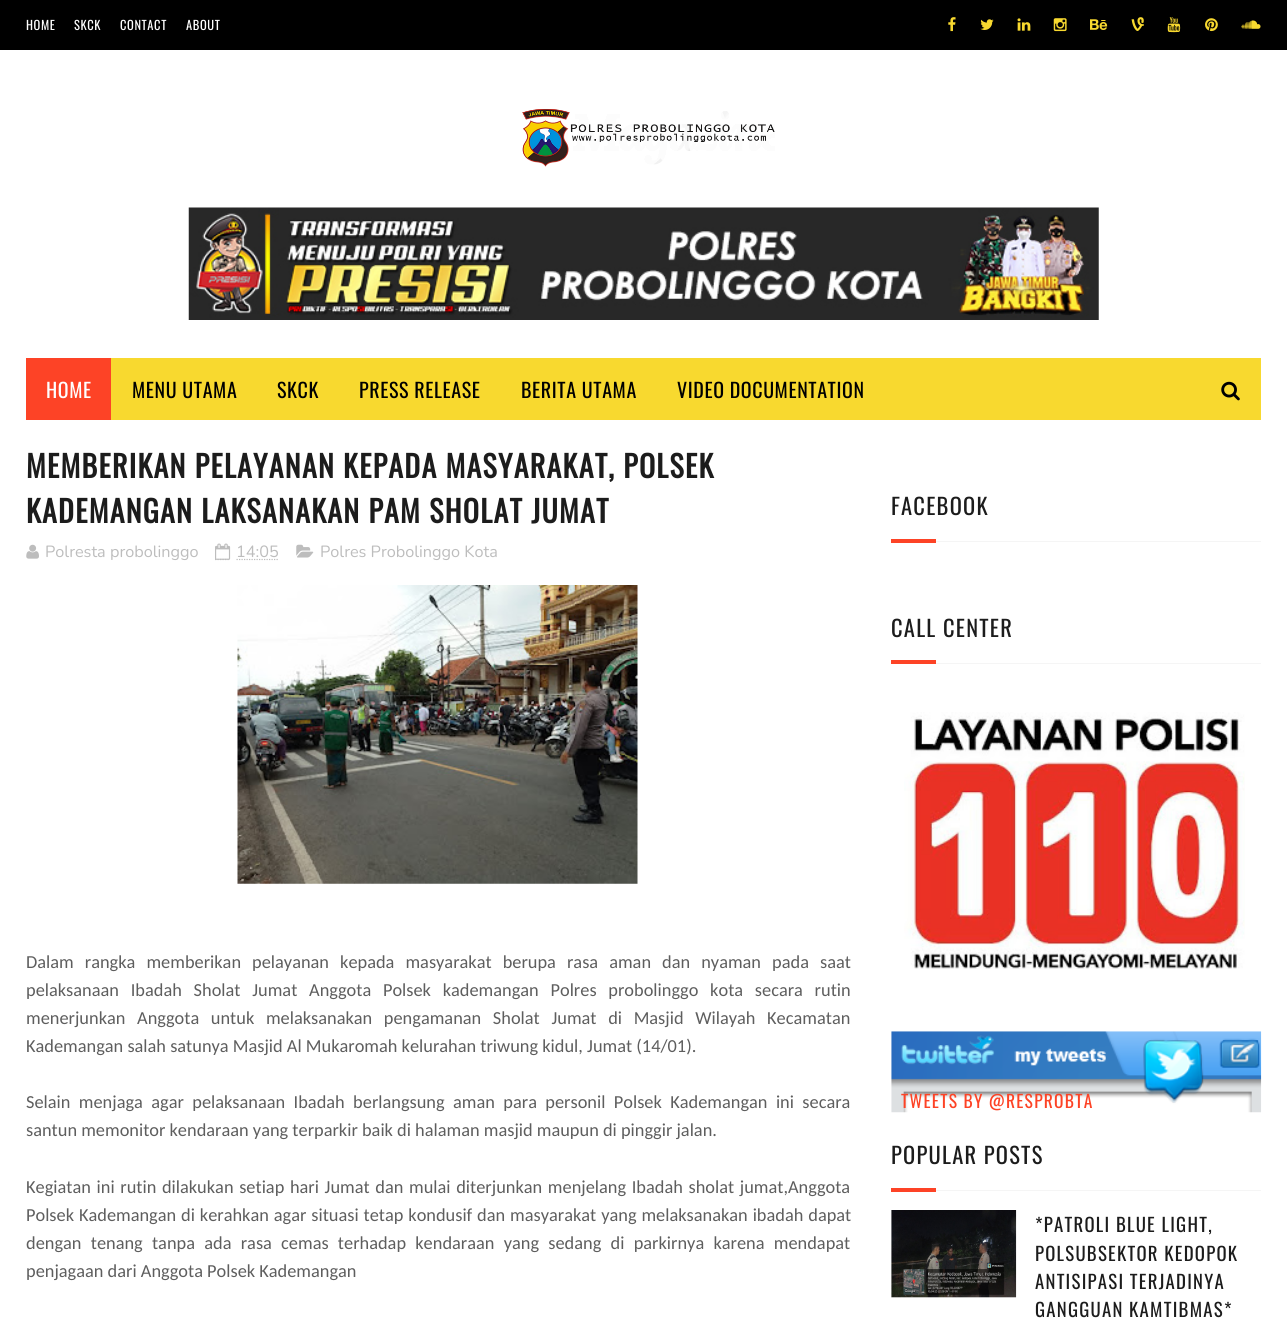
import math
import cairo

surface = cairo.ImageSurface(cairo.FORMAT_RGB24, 1287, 1326)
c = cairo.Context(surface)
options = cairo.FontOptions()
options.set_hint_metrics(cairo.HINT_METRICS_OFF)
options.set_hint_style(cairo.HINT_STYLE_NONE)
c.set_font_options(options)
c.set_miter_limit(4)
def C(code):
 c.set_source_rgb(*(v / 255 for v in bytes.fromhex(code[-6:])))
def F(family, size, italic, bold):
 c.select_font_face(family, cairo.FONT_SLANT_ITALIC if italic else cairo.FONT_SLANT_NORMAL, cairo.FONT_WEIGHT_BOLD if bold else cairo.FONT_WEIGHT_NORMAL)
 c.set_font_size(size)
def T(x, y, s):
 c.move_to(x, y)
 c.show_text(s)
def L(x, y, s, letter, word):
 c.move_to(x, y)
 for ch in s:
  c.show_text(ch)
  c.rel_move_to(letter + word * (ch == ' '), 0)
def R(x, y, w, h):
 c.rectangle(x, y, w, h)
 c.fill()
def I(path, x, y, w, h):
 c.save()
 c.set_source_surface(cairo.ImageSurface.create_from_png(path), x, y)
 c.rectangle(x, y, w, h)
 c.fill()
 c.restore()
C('ffffff')
c.paint()
C('f4f4f4')
R(891,1210,125,88)
C('000000')
R(0,0,1287,50)
F('Oswald',12.5,0,0)
C('ffffff')
L(26,30,'HOME',.6,0)
L(74,30,'SKCK',.6,0)
L(120,30,'CONTACT',.6,0)
L(186,30,'ABOUT',.6,0)
I('1.png',948,17,8,15)
I('2.png',980,19,14,11)
I('3.png',1017,18,14,13)
I('4.png',1053,18,14,14)
I('5.png',1090,19,18,11)
I('6.png',1131,17,13,14)
I('7.png',1167,17,14,16)
I('8.png',1205,18,13,14)
I('9.png',1241,20,20,9)
I('10.png',522,109,253,58)
I('11.png',188,207,911,113)
C('f8d92f')
R(111,358,1150,62)
C('fd4326')
R(26,358,85,62)
F('Oswald',20,0,0)
C('ffffff')
L(46,398,'HOME',.6,0)
C('000000')
L(132,398,'MENU UTAMA',.6,0)
L(277,398,'SKCK',.6,0)
L(359,398,'PRESS RELEASE',.6,0)
L(521,398,'BERITA UTAMA',.6,0)
L(677,398,'VIDEO DOCUMENTATION',.6,0)
I('12.png',1221,381,19,20)
F('Oswald',30,0,1)
C('1c1c1c')
L(26,478,'MEMBERIKAN PELAYANAN KEPADA MASYARAKAT, POLSEK',1.25,0)
L(26,523,'KADEMANGAN LAKSANAKAN PAM SHOLAT JUMAT',1.25,0)
I('13.png',26,544,13,15)
F('Nunito',16.25,0,0)
C('bdbdbd')
T(45,557,'Polresta probolinggo')
c.new_path()
c.move_to(215,559.5)
c.line_to(230,559.5)
c.set_line_width(1.2)
c.set_dash([1.25,1.25])
c.stroke()
I('14.png',215,543,16,17)
T(236,557,'14:05')
c.new_path()
c.move_to(236.5,559.5)
c.line_to(279,559.5)
c.stroke()
I('15.png',296,544,18,14)
T(320,557,'Polres Probolinggo Kota')
I('16.png',237,585,401,299)
F('Carlito',18.35,0,0)
C('5e5e5e')
L(26,968,'Dalam rangka memberikan pelayanan kepada masyarakat berupa rasa aman dan nyaman pada saat',0,6.9)
L(26,996,'pelaksanaan Ibadah Sholat Jumat Anggota Polsek kademangan Polres probolinggo kota secara rutin',0,7.6)
L(26,1024,'menerjunkan Anggota untuk melaksanakan pengamanan Sholat Jumat di Masjid Wilayah Kecamatan',0,7.5)
T(26,1052,'Kademangan salah satunya Masjid Al Mukaromah kelurahan triwung kidul, Jumat (14/01).')
L(26,1108,'Selain menjaga agar pelaksanaan Ibadah berlangsung aman para personil Polsek Kademangan ini secara',0,4.25)
T(26,1136,'santun memonitor kendaraan yang terparkir baik di halaman masjid maupun di pinggir jalan.')
L(26,1193,'Kegiatan ini rutin dilakukan setiap hari Jumat dan mulai diterjunkan menjelang Ibadah sholat jumat,Anggota',0,1.5)
L(26,1221,'Polsek Kademangan di kerahkan agar situasi tetap kondusif dan masyarakat yang melaksanakan ibadah dapat',0,.75)
L(26,1249,'dengan tenang tanpa ada rasa cemas terhadap kendaraan yang sedang di parkirnya karena mendapat',0,5.1)
T(26,1277,'penjagaan dari Anggota Polsek Kademangan')
C('f5f5f5')
R(936,541,325,1)
F('Oswald',22.5,0,0)
C('1c1c1c')
L(891,515,'FACEBOOK',1.25,0)
C('fd4326')
R(891,539,45,4)
C('f5f5f5')
R(936,663,325,1)
C('1c1c1c')
L(891,637,'CALL CENTER',1.25,0)
C('fd4326')
R(891,660,45,4)
I('17.png',904,712,341,257)
I('18.png',891,1031,371,82)
F('Oswald',17.5,0,0)
L(901,1108,'TWEETS BY @RESPROBTA',1.25,0)
C('f5f5f5')
R(936,1190,325,1)
F('Oswald',22.5,0,0)
C('1c1c1c')
L(891,1164,'POPULAR POSTS',1.25,0)
C('fd4326')
R(891,1188,45,4)
I('19.png',891,1210,126,88)
F('Oswald',18.75,0,0)
C('1c1c1c')
L(1035,1232,'*PATROLI BLUE LIGHT,',1.25,0)
L(1035,1261,'POLSUBSEKTOR KEDOPOK',1.25,0)
L(1035,1289,'ANTISIPASI TERJADINYA',1.25,0)
L(1035,1317,'GANGGUAN KAMTIBMAS*',1.25,0)
surface.write_to_png('o.png')
